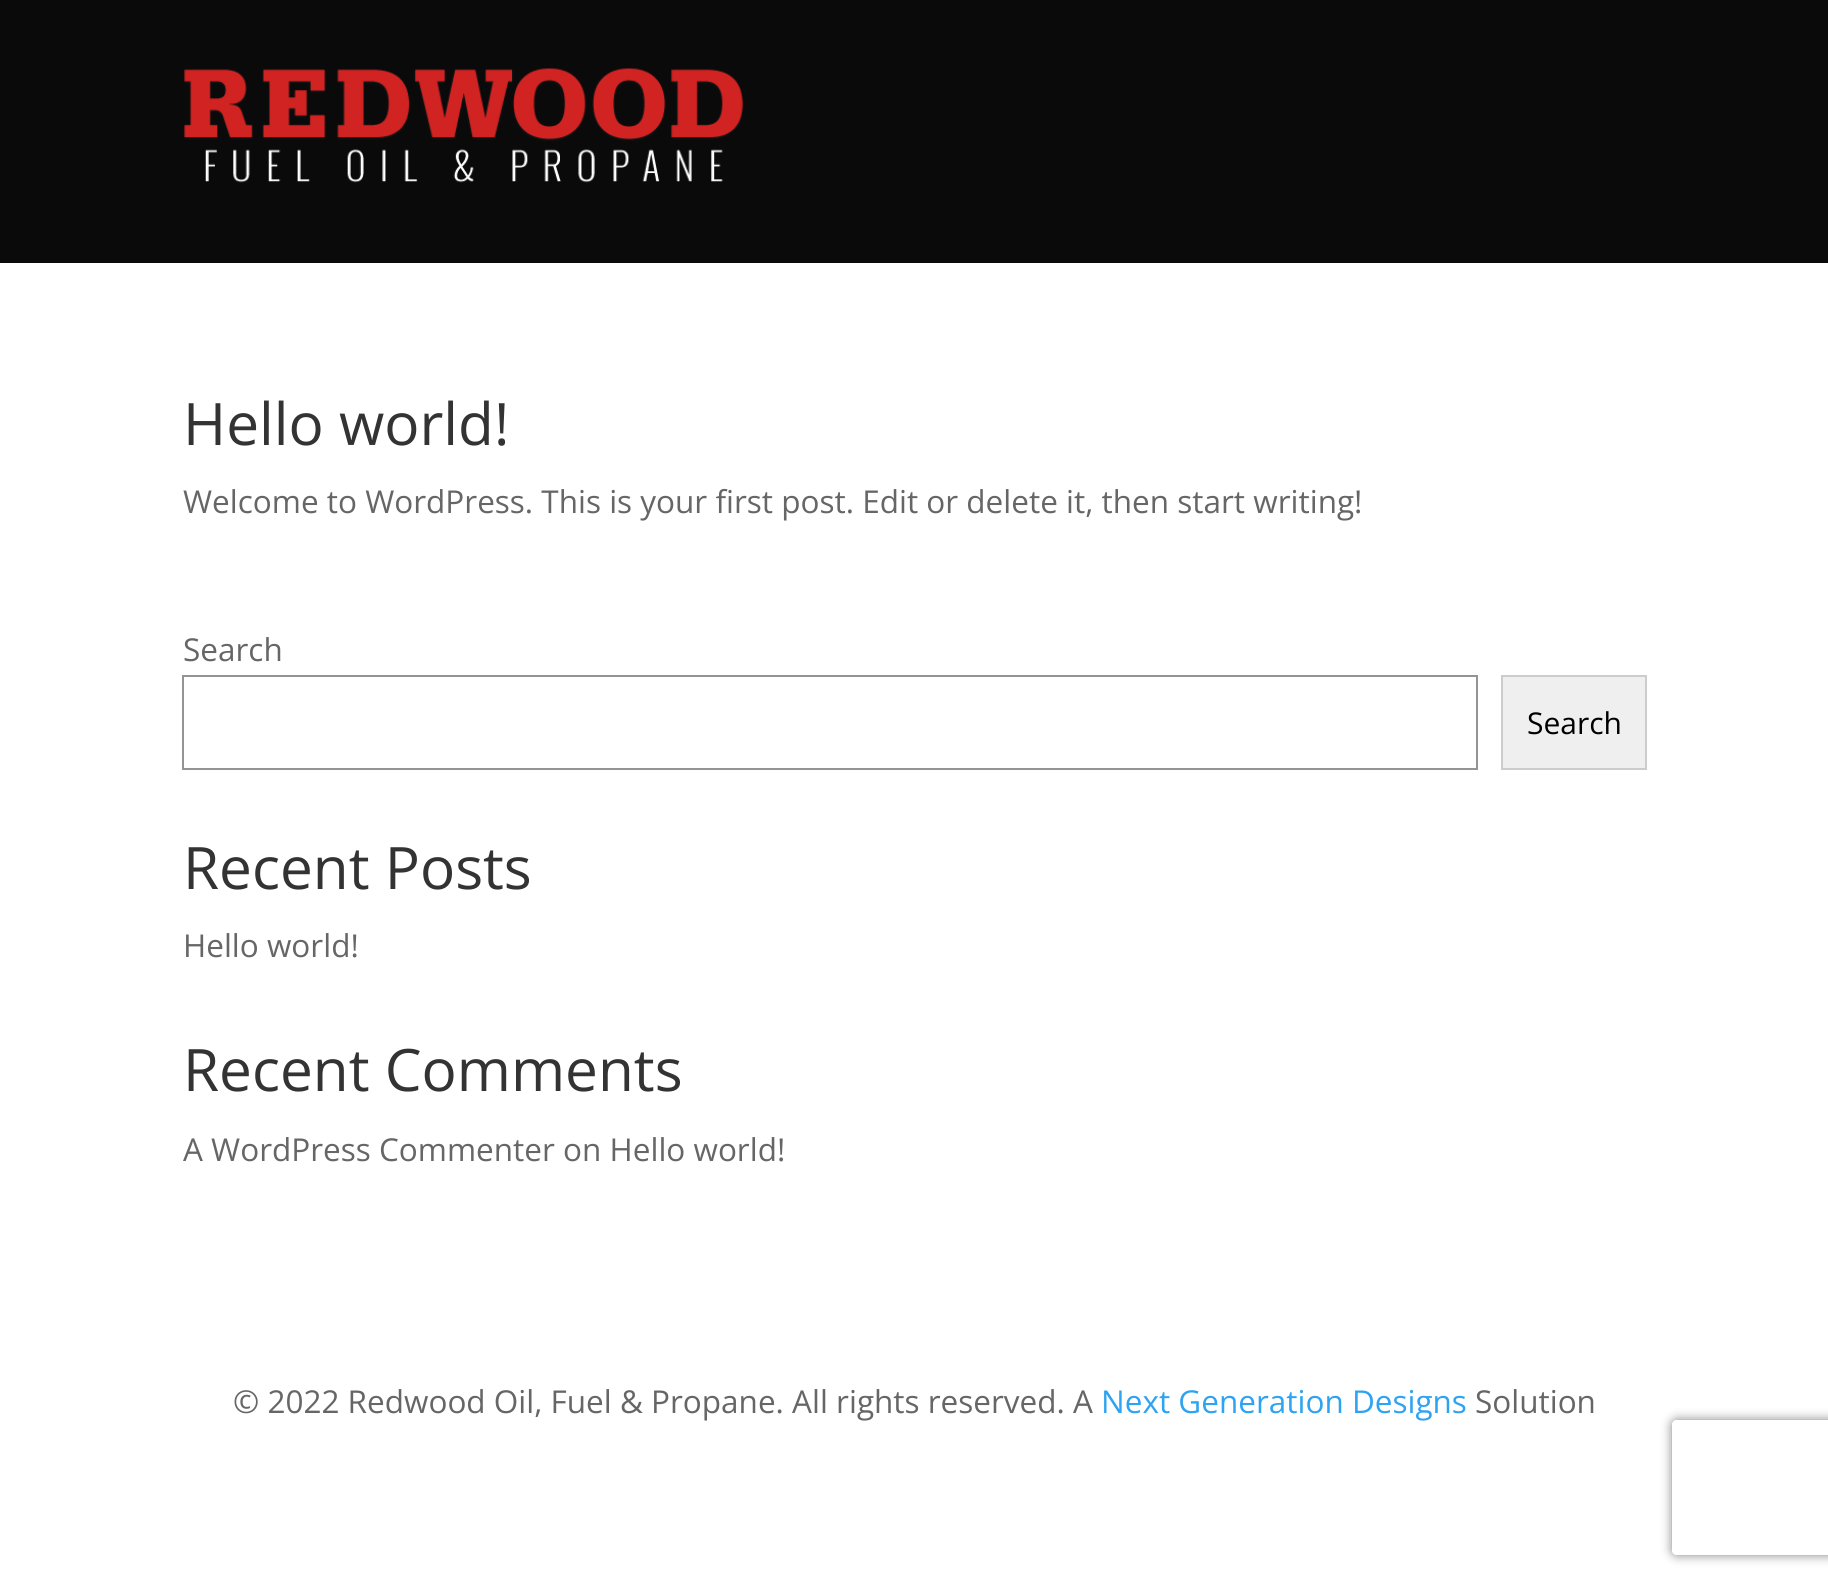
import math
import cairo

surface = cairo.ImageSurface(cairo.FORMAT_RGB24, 1828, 1586)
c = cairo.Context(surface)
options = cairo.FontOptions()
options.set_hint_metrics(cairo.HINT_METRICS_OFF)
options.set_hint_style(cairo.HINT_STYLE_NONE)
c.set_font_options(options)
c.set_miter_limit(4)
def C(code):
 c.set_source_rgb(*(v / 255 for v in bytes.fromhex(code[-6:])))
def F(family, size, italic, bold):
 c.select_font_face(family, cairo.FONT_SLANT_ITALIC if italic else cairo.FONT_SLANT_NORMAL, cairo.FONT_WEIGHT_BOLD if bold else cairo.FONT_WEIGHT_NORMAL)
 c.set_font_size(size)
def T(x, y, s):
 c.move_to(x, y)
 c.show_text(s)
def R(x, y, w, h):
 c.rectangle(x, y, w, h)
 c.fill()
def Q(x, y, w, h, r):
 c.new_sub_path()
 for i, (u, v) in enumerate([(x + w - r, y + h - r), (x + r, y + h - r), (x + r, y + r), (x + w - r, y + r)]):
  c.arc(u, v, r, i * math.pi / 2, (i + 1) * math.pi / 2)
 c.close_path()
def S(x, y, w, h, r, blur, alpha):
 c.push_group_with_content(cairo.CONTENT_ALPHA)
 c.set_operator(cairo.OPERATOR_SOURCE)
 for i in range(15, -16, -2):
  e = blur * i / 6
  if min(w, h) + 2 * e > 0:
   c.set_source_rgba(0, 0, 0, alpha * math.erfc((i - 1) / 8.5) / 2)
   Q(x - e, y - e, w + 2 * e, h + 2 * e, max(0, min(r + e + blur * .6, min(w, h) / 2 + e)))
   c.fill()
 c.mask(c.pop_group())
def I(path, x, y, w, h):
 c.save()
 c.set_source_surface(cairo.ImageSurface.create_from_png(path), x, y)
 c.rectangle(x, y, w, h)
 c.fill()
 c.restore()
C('ffffff')
c.paint()
C('0a0a0a')
R(0,0,1828,263)
I('1.png',183,68,560,115)
F('Open Sans',58.5,0,0)
C('333333')
T(183,445,'Hello world!')
F('Open Sans',31.5,0,0)
C('666666')
T(183,513,'Welcome to WordPress. This is your first post. Edit or delete it, then start writing!')
T(183,661,'Search')
c.rectangle(183,676,1294,93)
C('949494')
c.stroke()
C('efefef')
c.rectangle(1502,676,144,93)
c.fill_preserve()
C('cccccc')
c.stroke()
F('Open Sans',30,0,0)
C('000000')
T(1527,734,'Search')
F('Open Sans',58.5,0,0)
C('333333')
T(183,889,'Recent Posts')
F('Open Sans',31.5,0,0)
C('666666')
T(183,957,'Hello world!')
F('Open Sans',58.5,0,0)
C('333333')
T(183,1091,'Recent Comments')
F('Open Sans',31.5,0,0)
C('666666')
T(183,1161,'A WordPress Commenter on Hello world!')
T(233,1413,'© 2022 Redwood Oil, Fuel & Propane. All rights reserved. A')
C('2ea3f2')
T(1101,1413,'Next Generation Designs')
C('666666')
T(1475,1413,'Solution')
c.save()
c.set_fill_rule(cairo.FILL_RULE_EVEN_ODD)
c.new_path()
c.move_to(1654,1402)
c.line_to(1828,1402)
c.line_to(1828,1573)
c.line_to(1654,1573)
c.close_path()
c.move_to(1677,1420)
c.line_to(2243,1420)
c.curve_to(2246,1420,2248,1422,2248,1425)
c.line_to(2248,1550)
c.curve_to(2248,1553,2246,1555,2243,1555)
c.line_to(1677,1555)
c.curve_to(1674,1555,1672,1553,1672,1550)
c.line_to(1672,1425)
c.curve_to(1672,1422,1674,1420,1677,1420)
c.close_path()
c.clip()
C('808080')
S(1672,1420,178,135,5,5.5,1)
c.restore()
surface.write_to_png('o.png')
